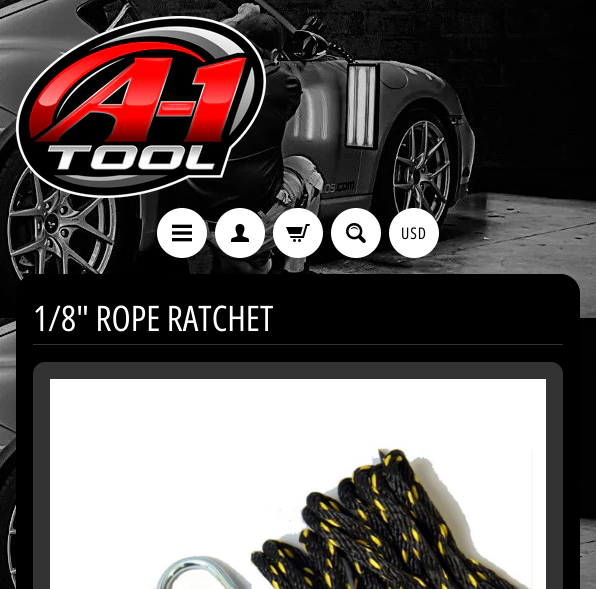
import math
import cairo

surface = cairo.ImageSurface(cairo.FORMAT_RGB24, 596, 589)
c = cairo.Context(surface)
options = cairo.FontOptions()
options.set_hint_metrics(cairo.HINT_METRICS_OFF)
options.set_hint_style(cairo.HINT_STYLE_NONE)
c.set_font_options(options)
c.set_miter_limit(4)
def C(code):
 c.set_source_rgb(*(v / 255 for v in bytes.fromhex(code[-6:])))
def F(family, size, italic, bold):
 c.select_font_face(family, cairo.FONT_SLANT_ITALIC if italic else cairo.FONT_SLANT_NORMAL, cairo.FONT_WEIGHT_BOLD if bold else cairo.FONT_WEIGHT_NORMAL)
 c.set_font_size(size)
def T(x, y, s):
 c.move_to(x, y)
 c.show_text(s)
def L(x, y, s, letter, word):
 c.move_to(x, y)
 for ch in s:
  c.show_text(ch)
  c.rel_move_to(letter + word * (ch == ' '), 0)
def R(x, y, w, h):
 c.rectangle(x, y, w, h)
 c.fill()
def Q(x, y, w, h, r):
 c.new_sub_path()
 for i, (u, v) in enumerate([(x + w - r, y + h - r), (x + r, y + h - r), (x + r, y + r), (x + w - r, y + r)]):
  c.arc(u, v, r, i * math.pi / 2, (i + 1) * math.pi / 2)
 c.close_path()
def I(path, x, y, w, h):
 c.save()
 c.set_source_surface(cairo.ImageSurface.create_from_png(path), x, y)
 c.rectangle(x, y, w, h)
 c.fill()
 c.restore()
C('ffffff')
c.paint()
I('1.png',0,0,596,589)
I('2.png',16,16,250,182)
C('ffffff')
c.arc(182,233,23.5,0,2 * math.pi)
c.fill_preserve()
c.set_line_width(3)
c.stroke()
I('3.png',172,224,20,18)
c.arc(240,233,23.5,0,2 * math.pi)
c.fill_preserve()
c.stroke()
I('4.png',231,224,18,18)
c.arc(298,233,23.5,0,2 * math.pi)
c.fill_preserve()
c.stroke()
I('5.png',286,224,24,18)
c.arc(356,233,23.5,0,2 * math.pi)
c.fill_preserve()
c.stroke()
I('6.png',346,223,20,20)
c.arc(414,233,23.5,0,2 * math.pi)
c.fill_preserve()
c.stroke()
F('Open Sans Condensed',16,0,0)
C('000000')
L(401,239,'USD',1,0)
Q(16,274,564,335,20)
c.fill()
Q(16.5,274.5,563,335,19.5)
c.set_source_rgba(0,0,0,0.7)
c.set_line_width(1)
c.stroke()
C('333333')
R(33,344,530,1)
F('Open Sans Condensed',35.25,0,0)
C('ffffff')
T(33,331,'1/8" ROPE RATCHET')
C('333333')
Q(33.5,362.5,529,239,11.5)
c.fill_preserve()
c.stroke()
I('7.png',50,379,496,210)
surface.write_to_png('o.png')
